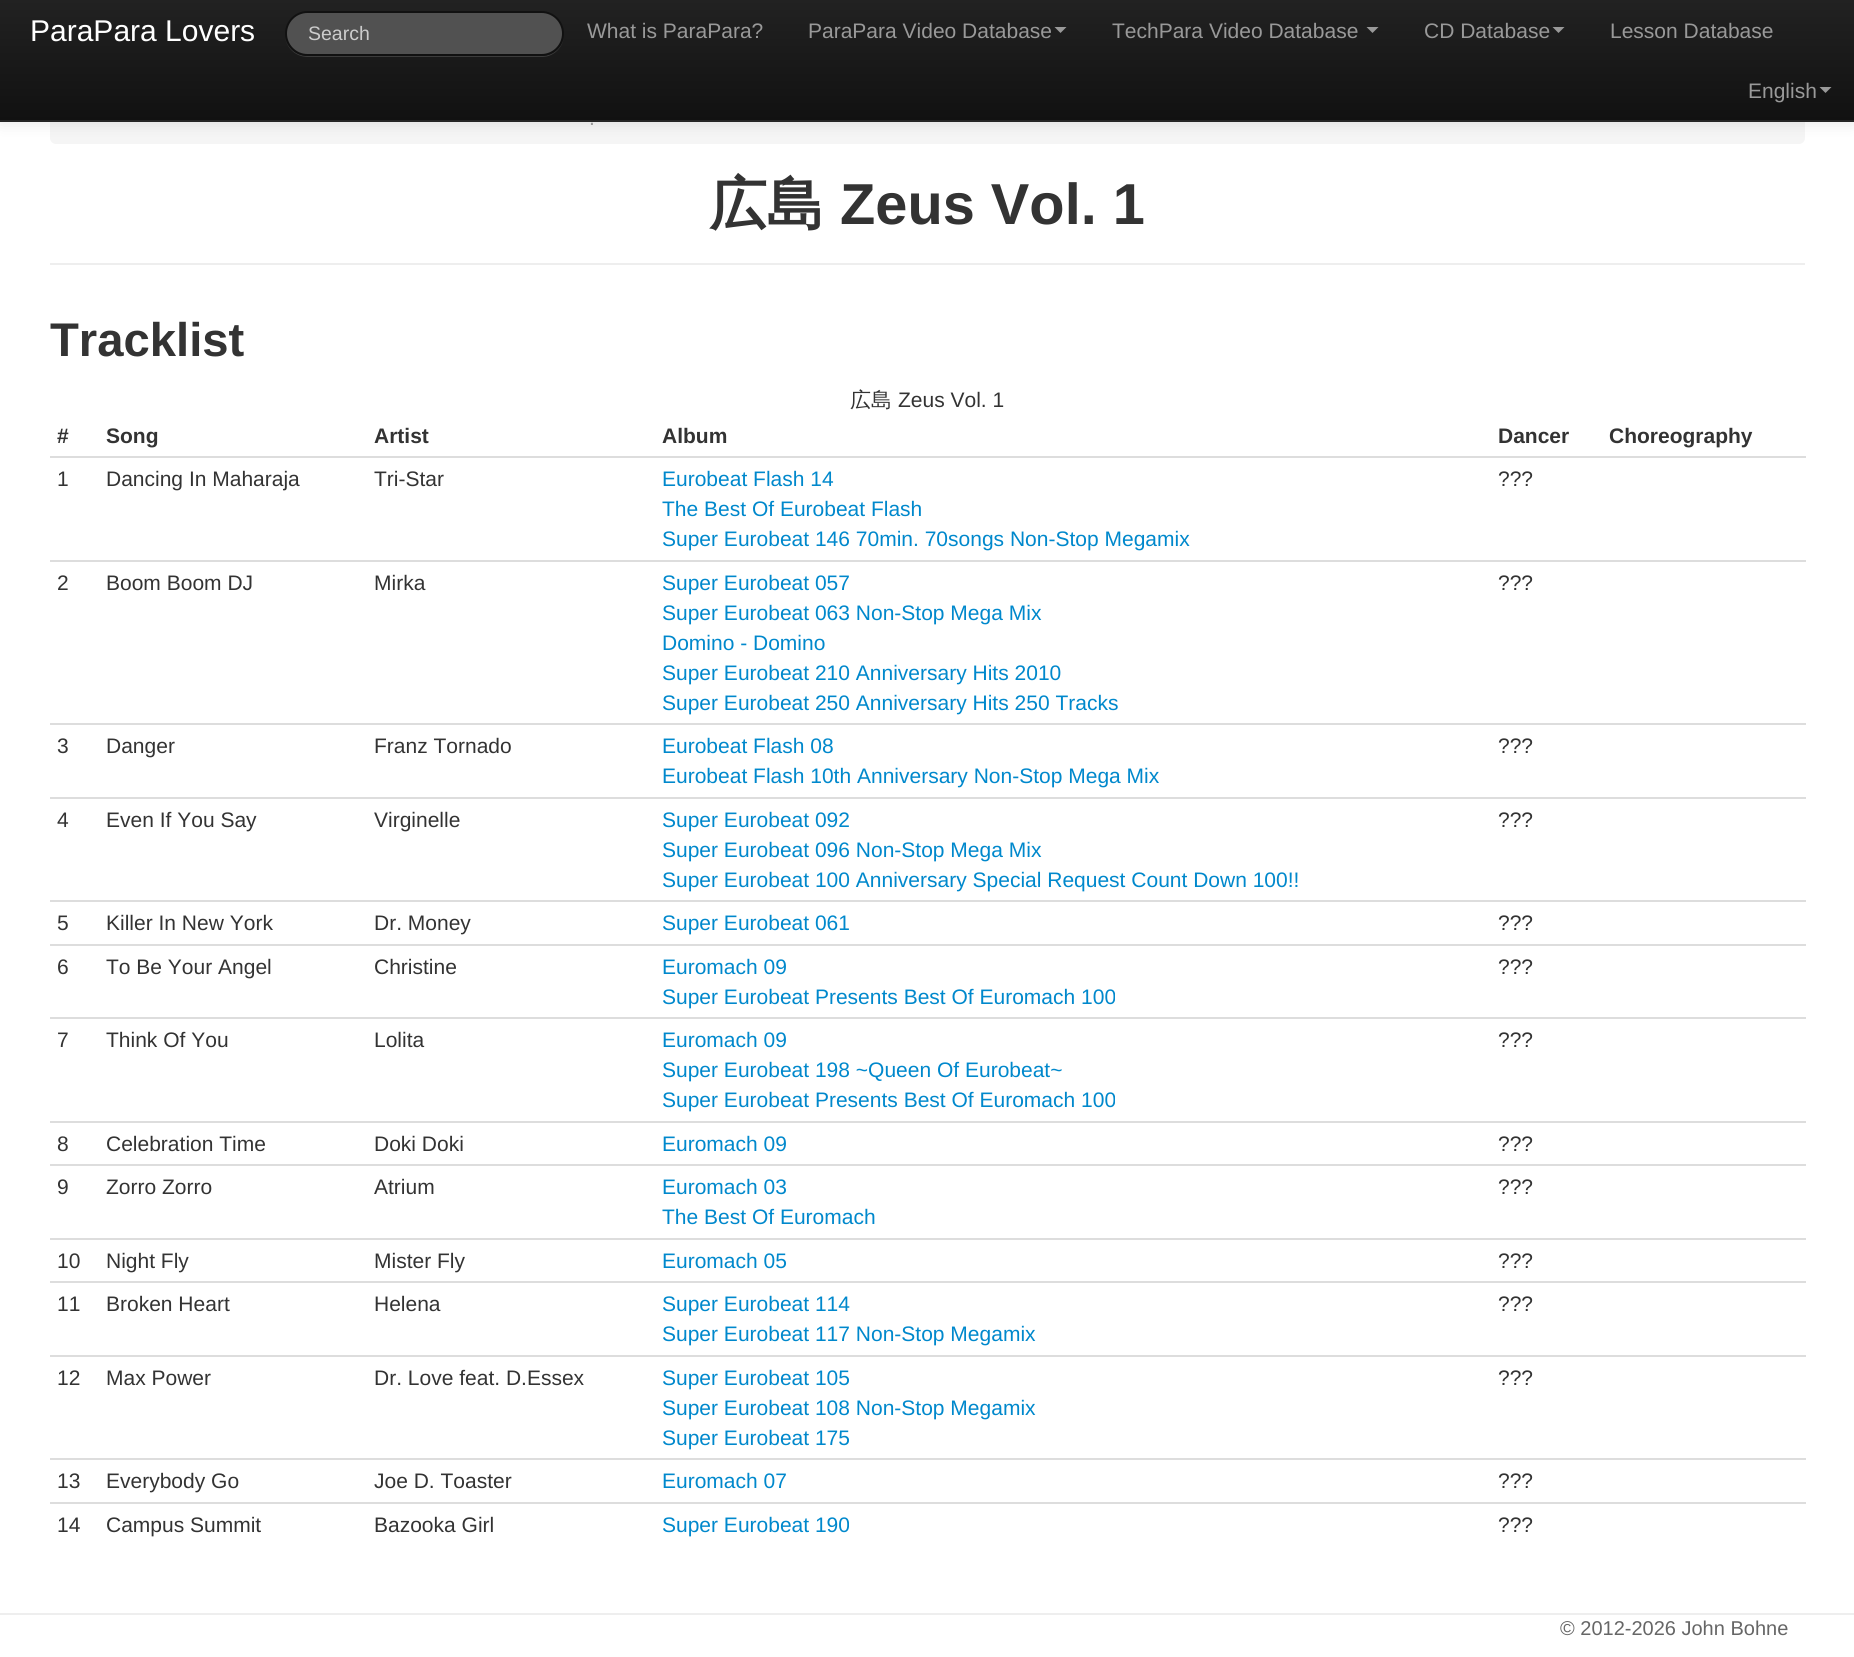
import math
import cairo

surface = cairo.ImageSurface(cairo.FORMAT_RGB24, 1854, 1657)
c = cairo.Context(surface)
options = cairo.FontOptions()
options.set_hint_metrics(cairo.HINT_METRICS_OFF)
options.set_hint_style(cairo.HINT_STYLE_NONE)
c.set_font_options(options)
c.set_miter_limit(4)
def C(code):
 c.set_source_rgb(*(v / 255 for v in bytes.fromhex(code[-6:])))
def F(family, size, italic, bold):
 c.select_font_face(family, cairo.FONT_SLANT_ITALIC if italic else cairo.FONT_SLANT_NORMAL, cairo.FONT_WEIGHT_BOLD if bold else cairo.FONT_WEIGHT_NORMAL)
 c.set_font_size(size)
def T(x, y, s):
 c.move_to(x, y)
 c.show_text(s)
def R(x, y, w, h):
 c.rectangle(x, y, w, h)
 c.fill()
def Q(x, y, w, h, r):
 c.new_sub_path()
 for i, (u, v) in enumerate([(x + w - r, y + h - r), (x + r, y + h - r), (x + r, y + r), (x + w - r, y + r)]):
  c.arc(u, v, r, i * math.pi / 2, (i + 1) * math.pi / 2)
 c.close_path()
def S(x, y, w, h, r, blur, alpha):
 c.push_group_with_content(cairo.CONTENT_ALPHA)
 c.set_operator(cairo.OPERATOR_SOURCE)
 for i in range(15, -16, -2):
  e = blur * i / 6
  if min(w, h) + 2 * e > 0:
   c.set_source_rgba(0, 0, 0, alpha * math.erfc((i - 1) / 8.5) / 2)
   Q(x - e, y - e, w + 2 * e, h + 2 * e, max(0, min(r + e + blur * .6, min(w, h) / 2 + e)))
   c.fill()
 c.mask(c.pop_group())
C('ffffff')
c.paint()
C('f5f5f5')
Q(50,90,1755,54,6)
c.fill()
C('000000')
S(0,2,1854,121,0,7.5,.1)
gradient = cairo.LinearGradient(927,0,927,120)
gradient.add_color_stop_rgba(0,0.133,0.133,0.133,1)
gradient.add_color_stop_rgba(1,0.067,0.067,0.067,1)
c.set_source(gradient)
R(0,0,1854,120)
C('252525')
R(0,120,1854,2)
F('Liberation Sans',30,0,0)
C('ffffff')
T(30,41,'ParaPara Lovers')
C('3c3c3c')
c.new_path()
c.move_to(285,34)
c.curve_to(285,47,295,57,308,57)
c.line_to(542,57)
c.curve_to(554,57,564,47,564,34)
c.curve_to(564,46,554,56,542,56)
c.line_to(308,56)
c.curve_to(295,56,285,46,285,34)
c.close_path()
c.fill()
C('515151')
Q(286,12,277,43,21.5)
c.fill_preserve()
C('111111')
c.stroke()
F('Liberation Sans',19.5,0,0)
C('cccccc')
T(308,40,'Search')
F('Liberation Sans',21,0,0)
C('999999')
T(587,38,'What is ParaPara?')
T(808,38,'ParaPara Video Database')
c.new_path()
c.move_to(1054.5,27)
c.line_to(1066.5,27)
c.line_to(1060.5,33)
c.close_path()
c.fill()
T(1112,38,'TechPara Video Database')
c.new_path()
c.move_to(1366.5,27)
c.line_to(1378.5,27)
c.line_to(1372.5,33)
c.close_path()
c.fill()
T(1424,38,'CD Database')
c.new_path()
c.move_to(1552.5,27)
c.line_to(1564.5,27)
c.line_to(1558.5,33)
c.close_path()
c.fill()
T(1610,38,'Lesson Database')
T(1748,98,'English')
c.new_path()
c.move_to(1819.5,87)
c.line_to(1831.5,87)
c.line_to(1825.5,93)
c.close_path()
c.fill()
T(589,125,'.')
C('eeeeee')
R(50,263,1755,2)
F('WenQuanYi Zen Hei',57.75,0,1)
C('333333')
T(709,224,'広島')
F('Liberation Sans',57.75,0,1)
T(840,224,'Zeus Vol. 1')
F('Liberation Sans',47.25,0,1)
T(50,356,'Tracklist')
F('WenQuanYi Zen Hei Medium',21,0,0)
T(850,407,'広島')
F('Liberation Sans',21,0,0)
T(898,407,'Zeus Vol. 1')
F('Liberation Sans',21,0,1)
T(57,443,'#')
T(106,443,'Song')
T(374,443,'Artist')
T(662,443,'Album')
T(1498,443,'Dancer')
T(1609,443,'Choreography')
C('dddddd')
R(50,456,1756,2)
F('Liberation Sans',21,0,0)
C('333333')
T(57,486,'1')
T(106,486,'Dancing In Maharaja')
T(374,486,'Tri-Star')
C('0088cc')
T(662,486,'Eurobeat Flash 14')
T(662,516,'The Best Of Eurobeat Flash')
T(662,546,'Super Eurobeat 146 70min. 70songs Non-Stop Megamix')
C('333333')
T(1498,486,'???')
C('dddddd')
R(50,560,1756,2)
C('333333')
T(57,590,'2')
T(106,590,'Boom Boom DJ')
T(374,590,'Mirka')
C('0088cc')
T(662,590,'Super Eurobeat 057')
T(662,620,'Super Eurobeat 063 Non-Stop Mega Mix')
T(662,650,'Domino - Domino')
T(662,680,'Super Eurobeat 210 Anniversary Hits 2010')
T(662,710,'Super Eurobeat 250 Anniversary Hits 250 Tracks')
C('333333')
T(1498,590,'???')
C('dddddd')
R(50,723,1756,2)
C('333333')
T(57,753,'3')
T(106,753,'Danger')
T(374,753,'Franz Tornado')
C('0088cc')
T(662,753,'Eurobeat Flash 08')
T(662,783,'Eurobeat Flash 10th Anniversary Non-Stop Mega Mix')
C('333333')
T(1498,753,'???')
C('dddddd')
R(50,797,1756,2)
C('333333')
T(57,827,'4')
T(106,827,'Even If You Say')
T(374,827,'Virginelle')
C('0088cc')
T(662,827,'Super Eurobeat 092')
T(662,857,'Super Eurobeat 096 Non-Stop Mega Mix')
T(662,887,'Super Eurobeat 100 Anniversary Special Request Count Down 100!!')
C('333333')
T(1498,827,'???')
C('dddddd')
R(50,900,1756,2)
C('333333')
T(57,930,'5')
T(106,930,'Killer In New York')
T(374,930,'Dr. Money')
C('0088cc')
T(662,930,'Super Eurobeat 061')
C('333333')
T(1498,930,'???')
C('dddddd')
R(50,944,1756,2)
C('333333')
T(57,974,'6')
T(106,974,'To Be Your Angel')
T(374,974,'Christine')
C('0088cc')
T(662,974,'Euromach 09')
T(662,1004,'Super Eurobeat Presents Best Of Euromach 100')
C('333333')
T(1498,974,'???')
C('dddddd')
R(50,1017,1756,2)
C('333333')
T(57,1047,'7')
T(106,1047,'Think Of You')
T(374,1047,'Lolita')
C('0088cc')
T(662,1047,'Euromach 09')
T(662,1077,'Super Eurobeat 198 ~Queen Of Eurobeat~')
T(662,1107,'Super Eurobeat Presents Best Of Euromach 100')
C('333333')
T(1498,1047,'???')
C('dddddd')
R(50,1121,1756,2)
C('333333')
T(57,1151,'8')
T(106,1151,'Celebration Time')
T(374,1151,'Doki Doki')
C('0088cc')
T(662,1151,'Euromach 09')
C('333333')
T(1498,1151,'???')
C('dddddd')
R(50,1164,1756,2)
C('333333')
T(57,1194,'9')
T(106,1194,'Zorro Zorro')
T(374,1194,'Atrium')
C('0088cc')
T(662,1194,'Euromach 03')
T(662,1224,'The Best Of Euromach')
C('333333')
T(1498,1194,'???')
C('dddddd')
R(50,1238,1756,2)
C('333333')
T(57,1268,'10')
T(106,1268,'Night Fly')
T(374,1268,'Mister Fly')
C('0088cc')
T(662,1268,'Euromach 05')
C('333333')
T(1498,1268,'???')
C('dddddd')
R(50,1281,1756,2)
C('333333')
T(57,1311,'11')
T(106,1311,'Broken Heart')
T(374,1311,'Helena')
C('0088cc')
T(662,1311,'Super Eurobeat 114')
T(662,1341,'Super Eurobeat 117 Non-Stop Megamix')
C('333333')
T(1498,1311,'???')
C('dddddd')
R(50,1355,1756,2)
C('333333')
T(57,1385,'12')
T(106,1385,'Max Power')
T(374,1385,'Dr. Love feat. D.Essex')
C('0088cc')
T(662,1385,'Super Eurobeat 105')
T(662,1415,'Super Eurobeat 108 Non-Stop Megamix')
T(662,1445,'Super Eurobeat 175')
C('333333')
T(1498,1385,'???')
C('dddddd')
R(50,1458,1756,2)
C('333333')
T(57,1488,'13')
T(106,1488,'Everybody Go')
T(374,1488,'Joe D. Toaster')
C('0088cc')
T(662,1488,'Euromach 07')
C('333333')
T(1498,1488,'???')
C('dddddd')
R(50,1502,1756,2)
C('333333')
T(57,1532,'14')
T(106,1532,'Campus Summit')
T(374,1532,'Bazooka Girl')
C('0088cc')
T(662,1532,'Super Eurobeat 190')
C('333333')
T(1498,1532,'???')
C('eeeeee')
R(0,1613,1854,2)
F('Liberation Sans',20,0,0)
C('666666')
T(1560,1635,'© 2012-2026 John Bohne')
surface.write_to_png('o.png')
